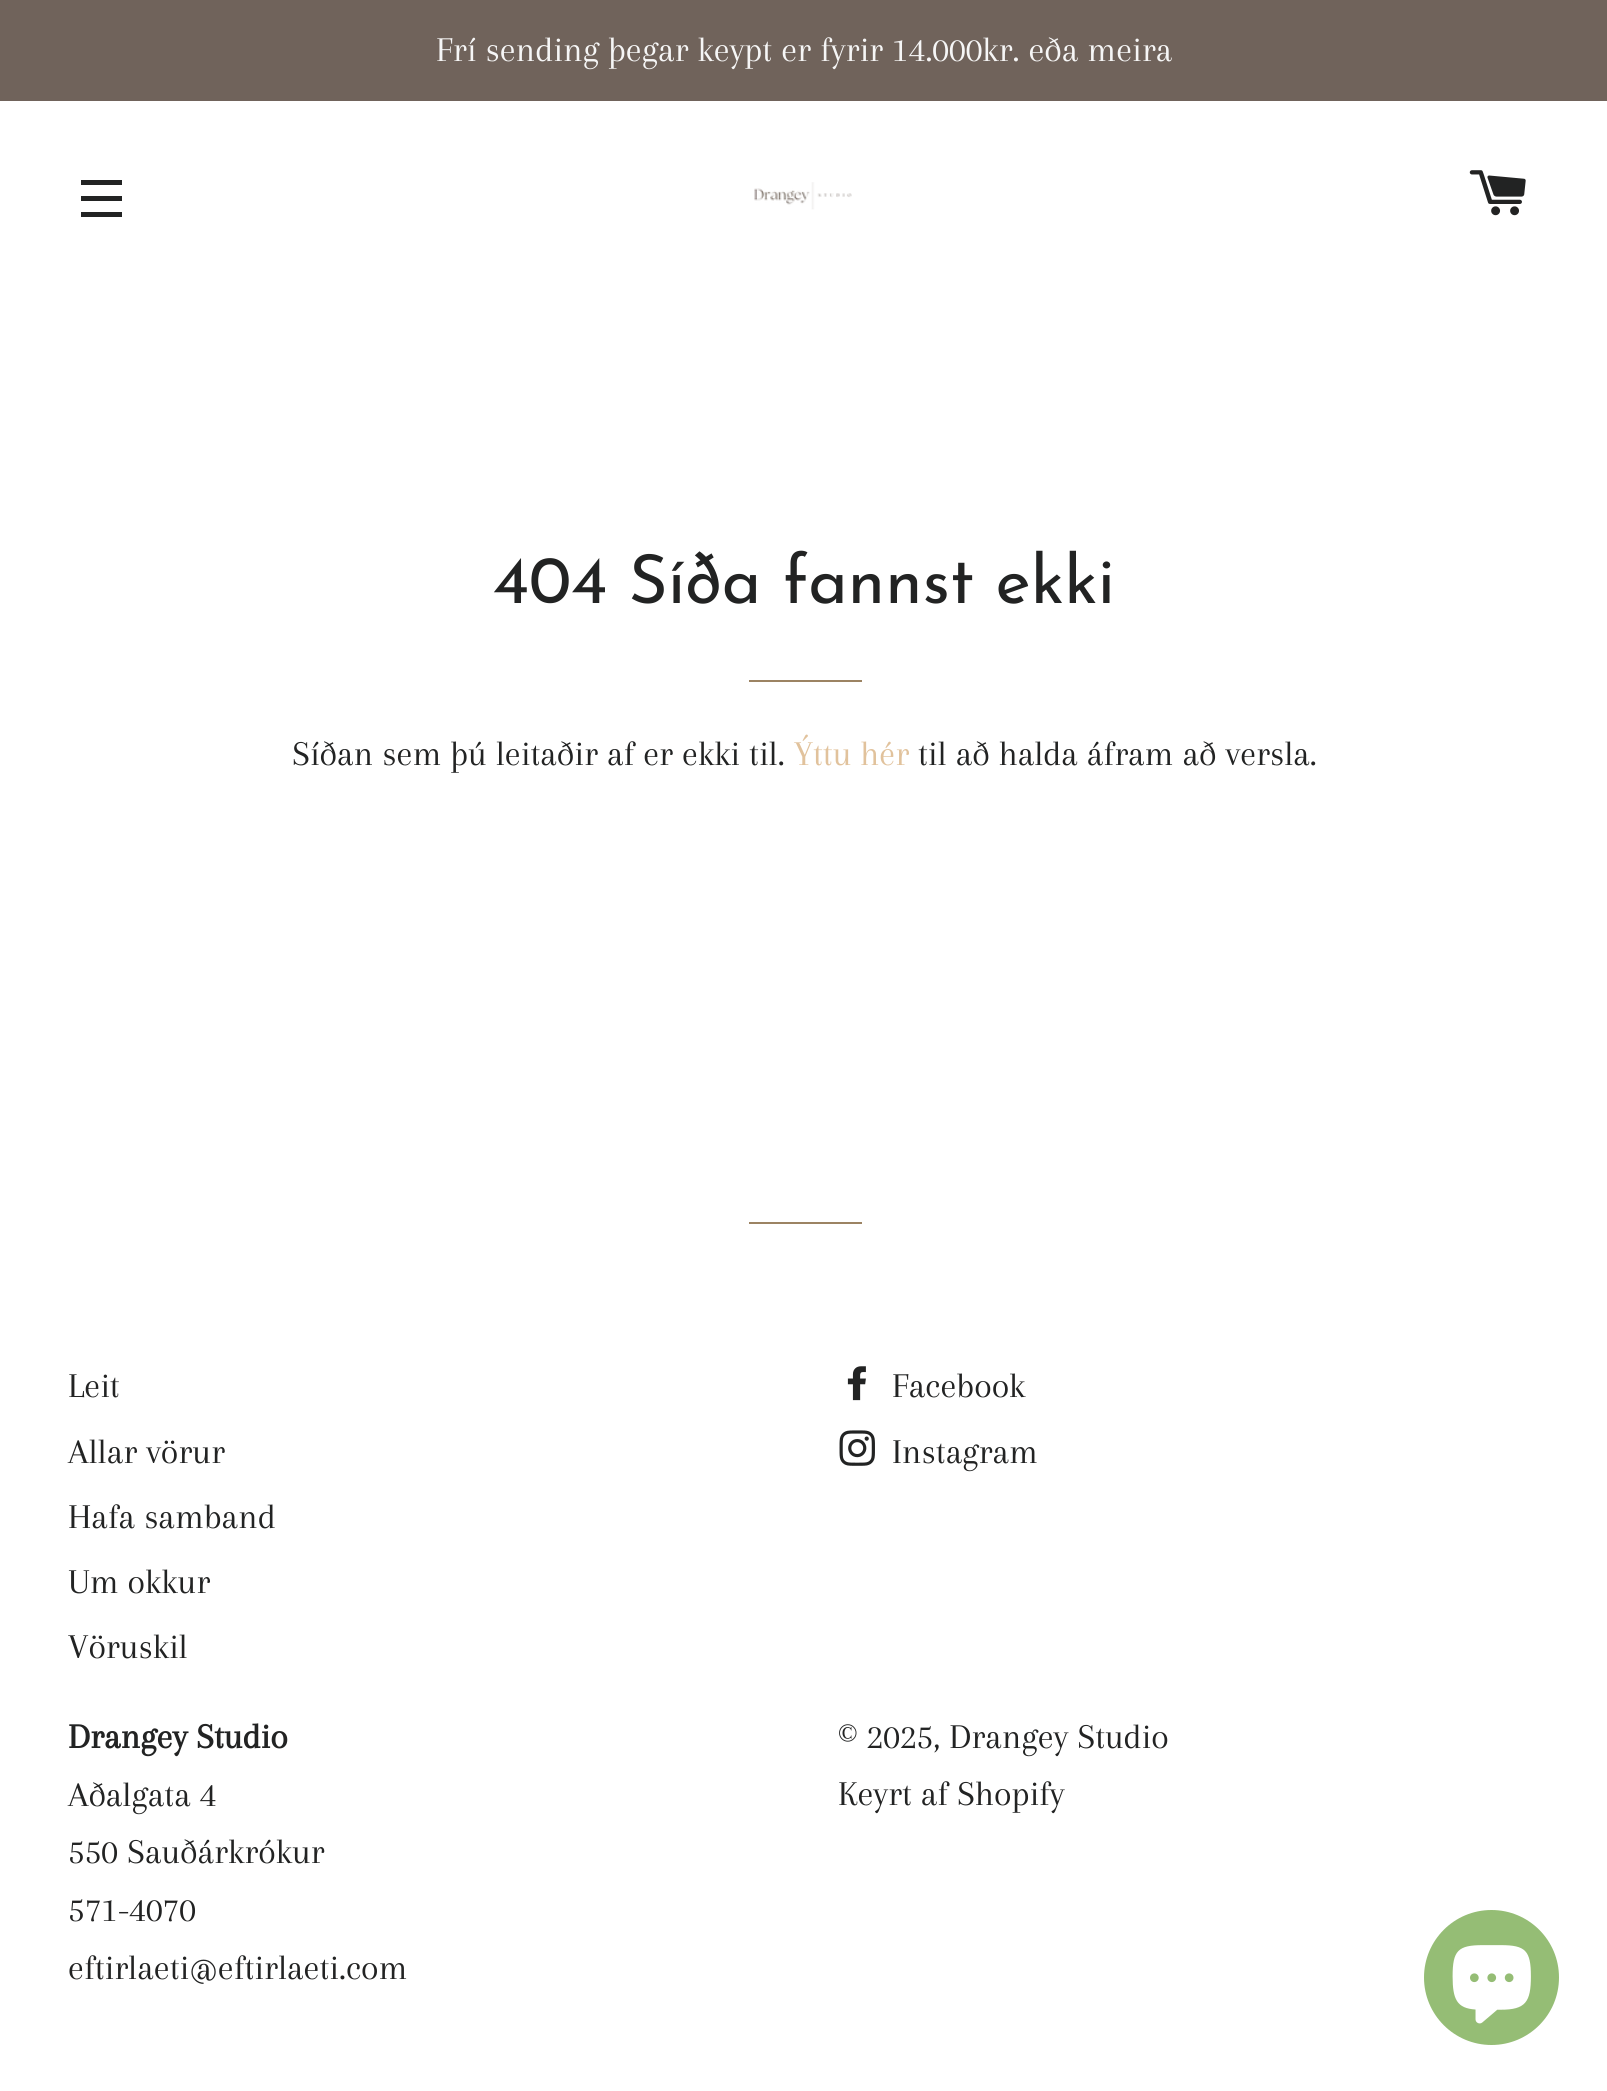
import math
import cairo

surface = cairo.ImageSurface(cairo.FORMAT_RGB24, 1607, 2091)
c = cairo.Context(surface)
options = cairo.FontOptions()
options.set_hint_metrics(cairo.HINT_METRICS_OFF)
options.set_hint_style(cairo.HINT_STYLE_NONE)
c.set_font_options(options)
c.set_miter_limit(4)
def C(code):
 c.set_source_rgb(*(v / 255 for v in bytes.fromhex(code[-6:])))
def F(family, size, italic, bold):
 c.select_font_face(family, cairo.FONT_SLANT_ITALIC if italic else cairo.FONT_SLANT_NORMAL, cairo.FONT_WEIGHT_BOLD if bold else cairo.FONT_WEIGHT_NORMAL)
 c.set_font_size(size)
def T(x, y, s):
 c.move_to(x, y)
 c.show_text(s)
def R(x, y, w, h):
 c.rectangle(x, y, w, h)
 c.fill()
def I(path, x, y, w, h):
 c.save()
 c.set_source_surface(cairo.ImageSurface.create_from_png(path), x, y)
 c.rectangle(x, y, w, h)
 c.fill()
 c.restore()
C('ffffff')
c.paint()
C('70635b')
R(0,0,1607,101)
F('Arapey',36,0,0)
C('f6f6f6')
T(436,61,'Frí sending þegar keypt er fyrir 14.000kr. eða meira')
C('222323')
R(81,180,41,5)
R(81,196,41,5)
R(81,212,41,5)
I('1.png',754,182,98,28)
I('2.png',1469,170,57,46)
F('Josefin Sans',67.5,0,0)
T(493,603,'404 Síða fannst ekki')
C('9c8363')
R(749,680,113,2)
F('Arapey',36,0,0)
C('222323')
T(292,765,'Síðan sem þú leitaðir af er ekki til.')
C('e1c29c')
T(794,765,'Ýttu hér')
C('222323')
T(918,765,'til að halda áfram að versla.')
C('9c8363')
R(749,1222,113,2)
C('222323')
T(68,1397,'Leit')
T(68,1463,'Allar vörur')
T(68,1528,'Hafa samband')
T(68,1593,'Um okkur')
T(68,1658,'Vöruskil')
I('3.png',847,1366,19,35)
T(892,1397,'Facebook')
I('4.png',839,1430,36,36)
T(892,1463,'Instagram')
F('Arapey',36,0,1)
T(68,1748,'Drangey Studio')
F('Arapey',36,0,0)
T(68,1806,'Aðalgata 4')
T(68,1863,'550 Sauðárkrókur')
T(68,1921,'571-4070')
T(68,1979,'eftirlaeti@eftirlaeti.com')
T(838,1748,'© 2025, Drangey Studio')
T(838,1805,'Keyrt af Shopify')
C('95bd75')
c.new_path()
c.arc(1491.5,1977.5,67.5,0,2 * math.pi)
c.fill()
I('5.png',1452,1945,79,79)
surface.write_to_png('o.png')
